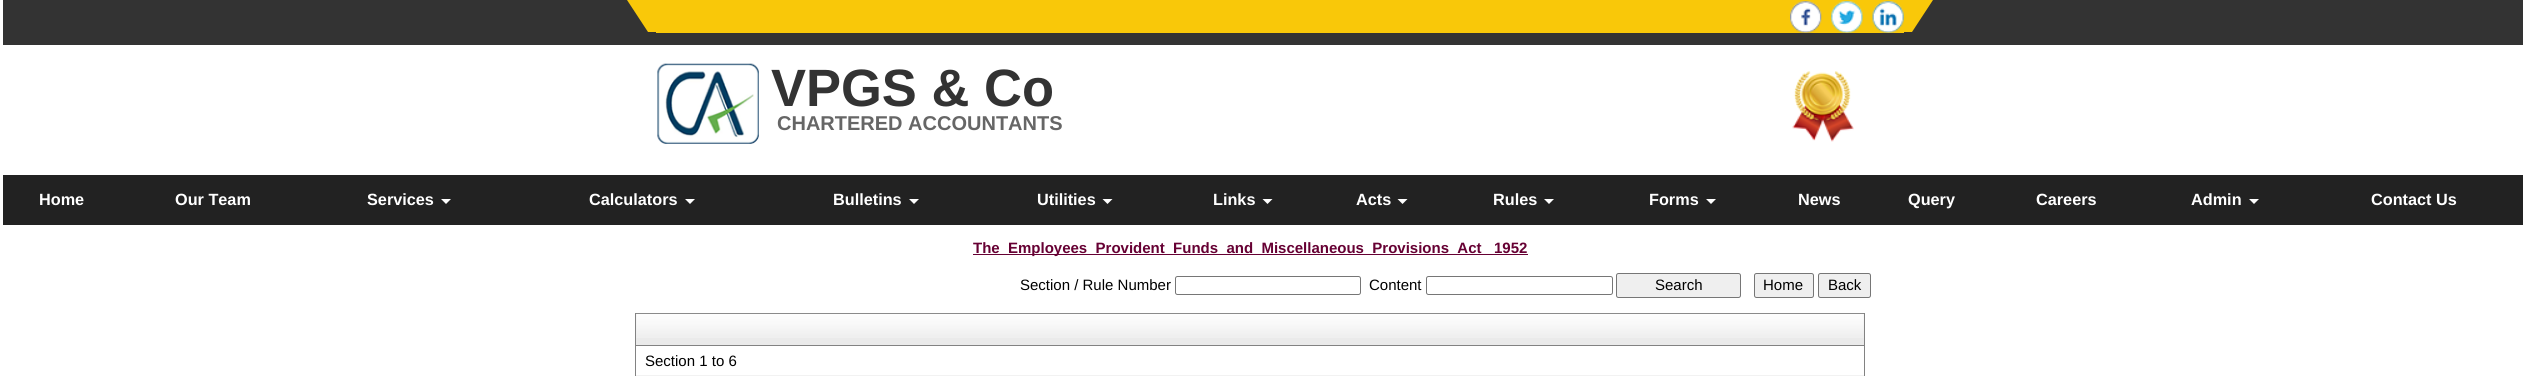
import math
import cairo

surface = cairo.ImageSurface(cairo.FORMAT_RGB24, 2525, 376)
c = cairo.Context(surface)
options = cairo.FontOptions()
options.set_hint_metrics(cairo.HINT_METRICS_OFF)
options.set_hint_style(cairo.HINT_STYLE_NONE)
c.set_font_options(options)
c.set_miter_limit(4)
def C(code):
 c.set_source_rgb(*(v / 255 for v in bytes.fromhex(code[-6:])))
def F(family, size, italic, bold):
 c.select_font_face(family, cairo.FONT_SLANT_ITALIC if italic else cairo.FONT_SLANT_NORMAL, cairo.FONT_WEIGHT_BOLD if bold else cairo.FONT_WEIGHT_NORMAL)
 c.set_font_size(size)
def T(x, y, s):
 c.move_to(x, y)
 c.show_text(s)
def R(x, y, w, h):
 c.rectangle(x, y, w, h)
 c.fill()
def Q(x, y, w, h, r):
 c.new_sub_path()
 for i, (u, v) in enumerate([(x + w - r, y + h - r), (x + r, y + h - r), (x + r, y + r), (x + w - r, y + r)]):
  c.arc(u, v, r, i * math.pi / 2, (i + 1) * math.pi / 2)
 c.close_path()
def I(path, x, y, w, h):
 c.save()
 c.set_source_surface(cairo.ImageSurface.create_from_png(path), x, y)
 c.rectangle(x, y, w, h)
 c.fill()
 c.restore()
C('ffffff')
c.paint()
C('333333')
R(3,0,2520,45)
C('f9c809')
R(656,0,1248,33)
c.new_path()
c.move_to(627,0)
c.line_to(670,0)
c.line_to(692,32)
c.line_to(648,32)
c.close_path()
c.fill()
c.new_path()
c.move_to(1890,0)
c.line_to(1933,0)
c.line_to(1912,32)
c.line_to(1868,32)
c.close_path()
c.fill()
I('1.png',1790,1,32,32)
I('2.png',1831,1,32,32)
I('3.png',1872,1,32,32)
I('4.png',657,63,102,81)
F('Liberation Sans',52.5,0,1)
C('333333')
T(771,106,'VPGS & Co')
F('Liberation Sans',20,0,1)
C('666666')
T(777,130,'CHARTERED ACCOUNTANTS')
I('5.png',1792,71,62,71)
C('222222')
R(3,175,2520,50)
F('Liberation Sans',16.25,0,1)
C('ffffff')
T(39,205,'Home')
T(175,205,'Our Team')
T(367,205,'Services')
c.new_path()
c.move_to(441,199)
c.line_to(451,199)
c.line_to(446,204)
c.close_path()
c.fill()
T(589,205,'Calculators')
c.new_path()
c.move_to(685,199)
c.line_to(695,199)
c.line_to(690,204)
c.close_path()
c.fill()
T(833,205,'Bulletins')
c.new_path()
c.move_to(909,199)
c.line_to(919,199)
c.line_to(914,204)
c.close_path()
c.fill()
T(1037,205,'Utilities')
c.new_path()
c.move_to(1102.5,199)
c.line_to(1112.5,199)
c.line_to(1107.5,204)
c.close_path()
c.fill()
T(1213,205,'Links')
c.new_path()
c.move_to(1262.5,199)
c.line_to(1272.5,199)
c.line_to(1267.5,204)
c.close_path()
c.fill()
T(1356,205,'Acts')
c.new_path()
c.move_to(1397.5,199)
c.line_to(1407.5,199)
c.line_to(1402.5,204)
c.close_path()
c.fill()
T(1493,205,'Rules')
c.new_path()
c.move_to(1544,199)
c.line_to(1554,199)
c.line_to(1549,204)
c.close_path()
c.fill()
T(1649,205,'Forms')
c.new_path()
c.move_to(1706,199)
c.line_to(1716,199)
c.line_to(1711,204)
c.close_path()
c.fill()
T(1798,205,'News')
T(1908,205,'Query')
T(2036,205,'Careers')
T(2191,205,'Admin')
c.new_path()
c.move_to(2249,199)
c.line_to(2259,199)
c.line_to(2254,204)
c.close_path()
c.fill()
T(2371,205,'Contact Us')
C('660033')
R(973,254,555,1)
F('Liberation Sans',15,0,1)
T(973,253,'The_Employees_Provident_Funds_and_Miscellaneous_Provisions_Act')
T(1494,253,'1952')
F('Liberation Sans',15,0,0)
C('000000')
T(1020,290,'Section / Rule Number')
Q(1175.5,276.5,185,18,2)
C('767676')
c.set_line_width(1)
c.stroke()
C('000000')
T(1369,290,'Content')
Q(1426.5,276.5,186,18,2)
C('767676')
c.stroke()
C('efefef')
Q(1616.5,273.5,124,24,2)
c.fill_preserve()
C('767676')
c.stroke()
C('000000')
T(1655,290,'Search')
C('efefef')
Q(1754.5,273.5,59,24,2)
c.fill_preserve()
C('767676')
c.stroke()
C('000000')
T(1763,290,'Home')
C('efefef')
Q(1818.5,273.5,52,24,2)
c.fill_preserve()
C('767676')
c.stroke()
C('000000')
T(1828,290,'Back')
c.rectangle(635.5,313.5,1229,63)
C('828282')
c.stroke()
C('eaeaea')
R(636,314,1228,31)
I('6.png',636,313,1228,25)
C('828282')
R(636,345,1228,1)
C('000000')
T(645,366,'Section 1 to 6')
C('f2f2f2')
R(636,375,1228,1)
surface.write_to_png('o.png')
